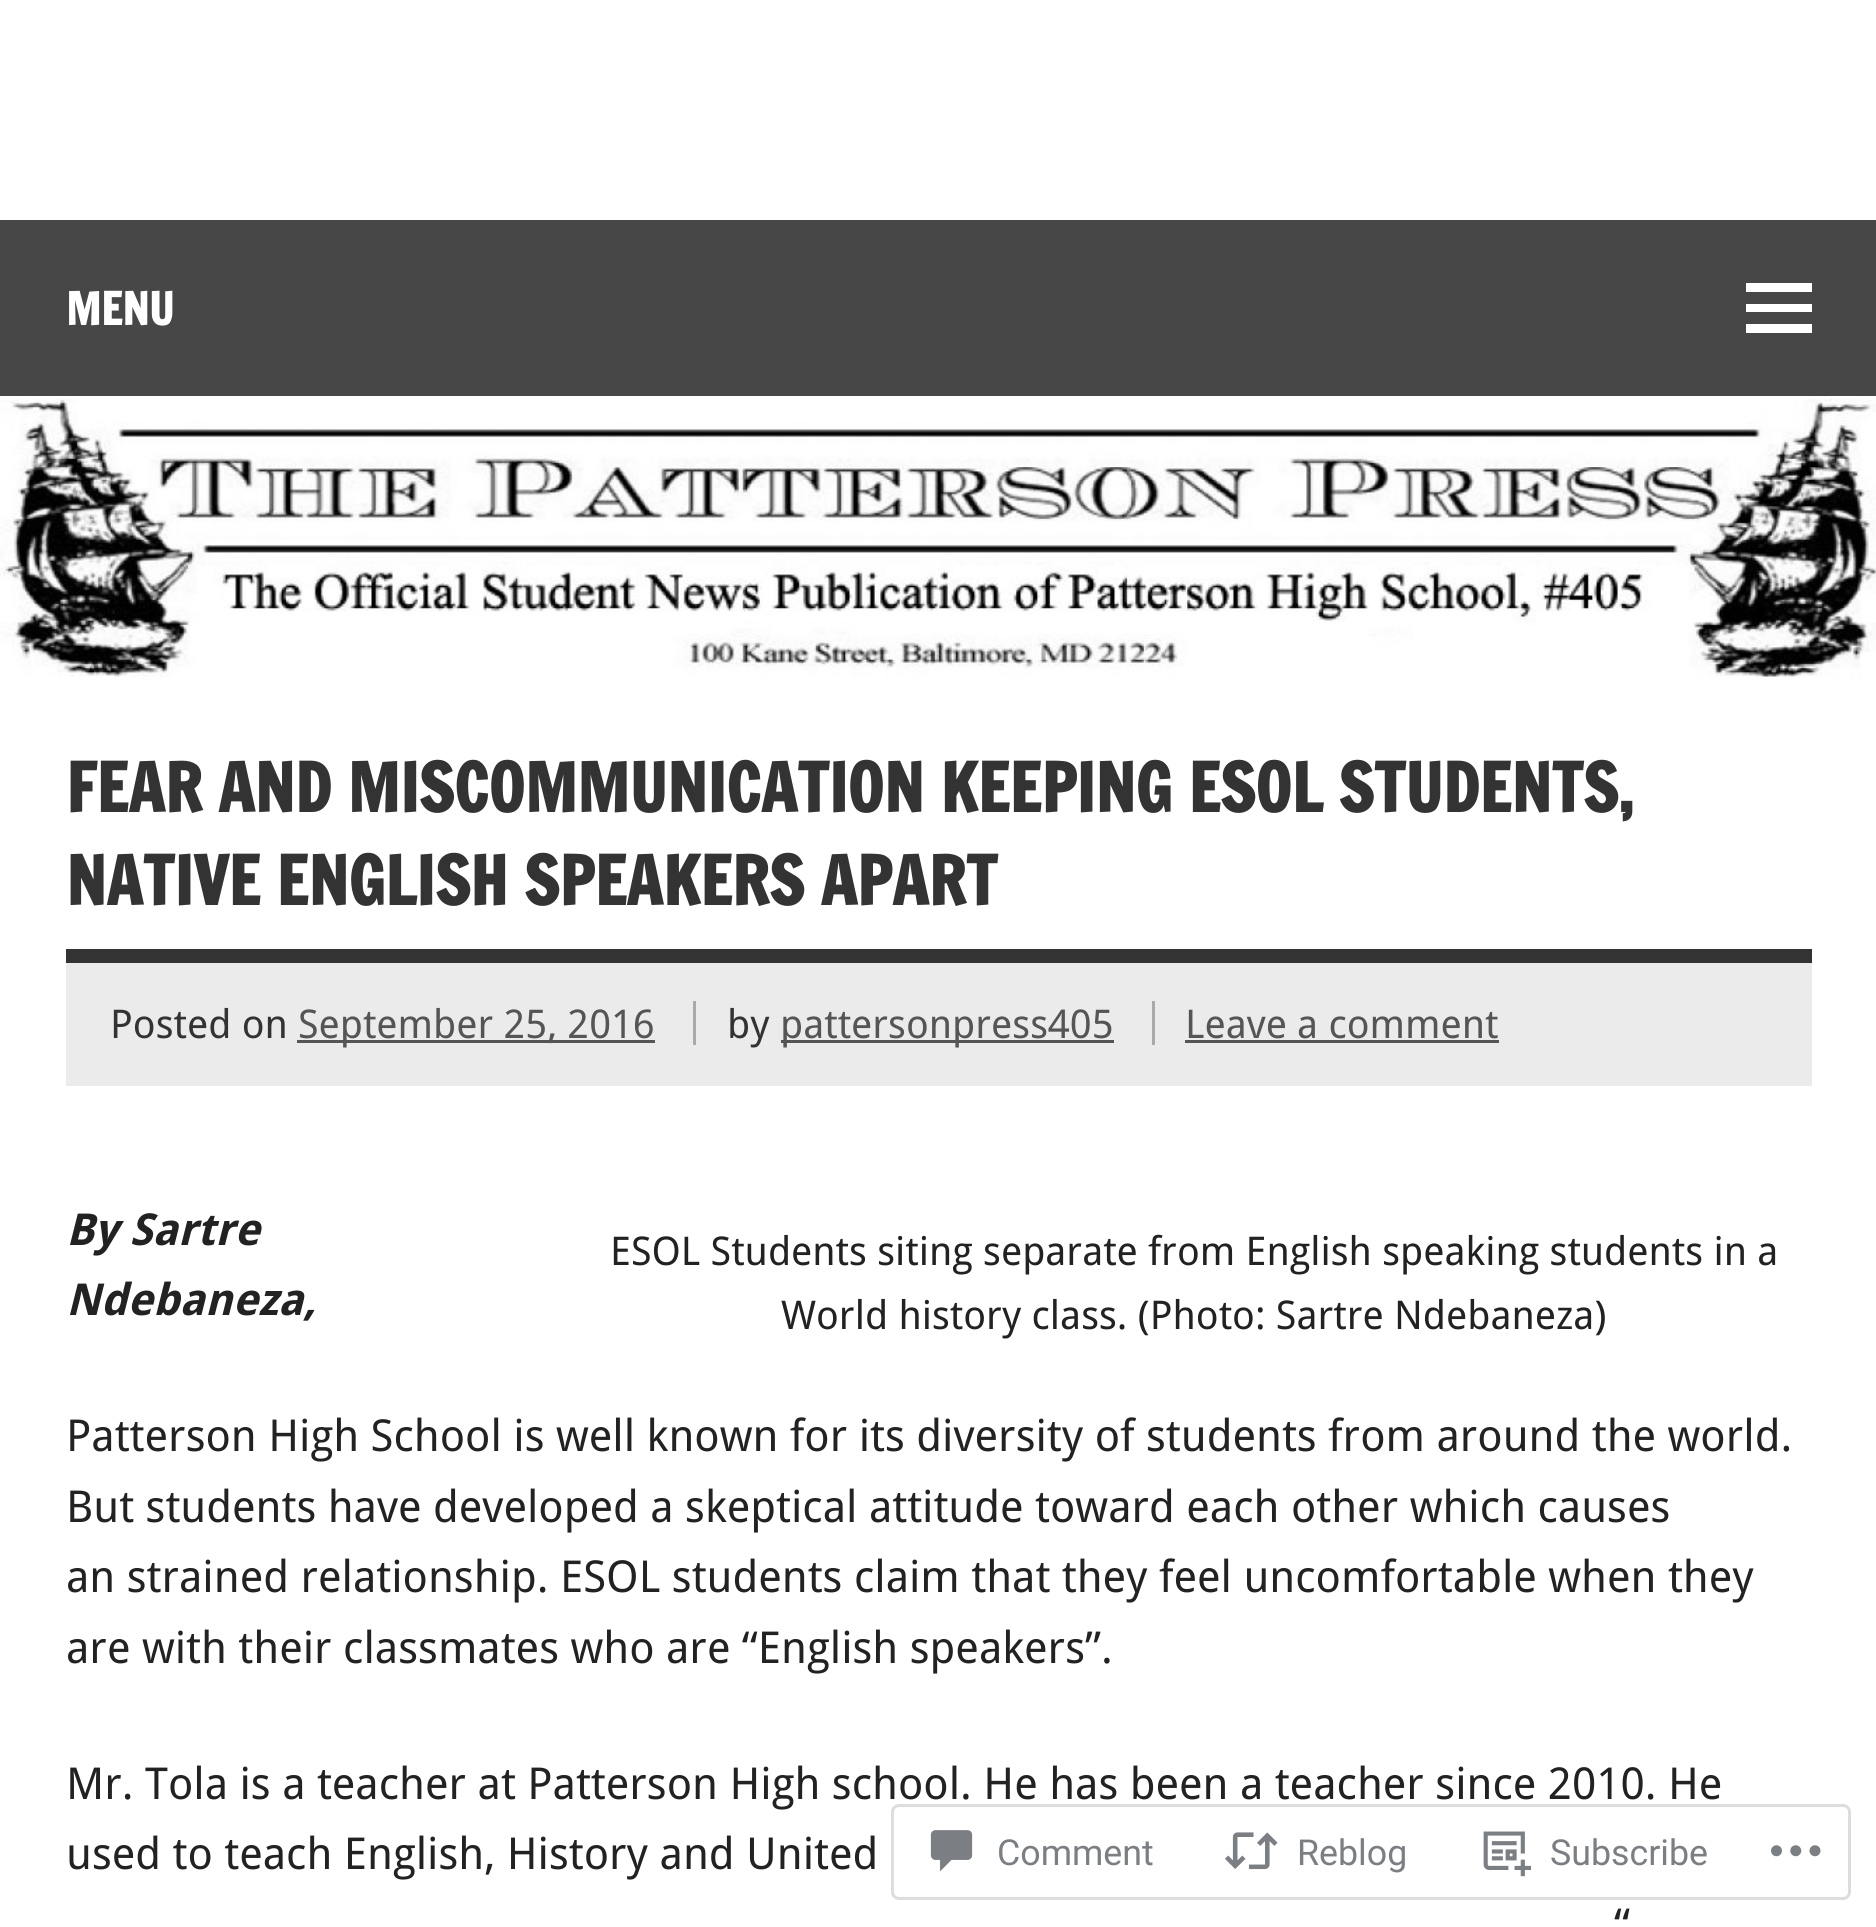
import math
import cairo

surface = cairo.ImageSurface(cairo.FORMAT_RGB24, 1876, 1927)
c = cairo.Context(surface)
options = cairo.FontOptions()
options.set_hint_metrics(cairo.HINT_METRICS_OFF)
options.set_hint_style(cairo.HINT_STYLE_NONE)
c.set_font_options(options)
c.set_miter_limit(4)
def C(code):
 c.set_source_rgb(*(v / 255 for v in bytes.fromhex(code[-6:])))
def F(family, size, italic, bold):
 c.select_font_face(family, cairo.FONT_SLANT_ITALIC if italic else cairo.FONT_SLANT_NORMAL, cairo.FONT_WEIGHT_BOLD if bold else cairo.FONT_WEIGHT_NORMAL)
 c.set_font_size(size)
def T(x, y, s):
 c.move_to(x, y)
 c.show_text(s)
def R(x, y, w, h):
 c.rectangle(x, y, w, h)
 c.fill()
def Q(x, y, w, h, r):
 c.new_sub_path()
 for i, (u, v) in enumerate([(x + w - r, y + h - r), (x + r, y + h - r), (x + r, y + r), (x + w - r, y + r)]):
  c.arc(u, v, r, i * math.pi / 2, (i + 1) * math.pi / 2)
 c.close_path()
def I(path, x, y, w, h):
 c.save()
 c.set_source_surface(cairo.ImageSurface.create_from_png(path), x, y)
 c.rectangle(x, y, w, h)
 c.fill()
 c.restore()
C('ffffff')
c.paint()
C('474747')
R(0,220,1876,176)
F('Francois One',44,0,1)
C('ffffff')
T(66,325,'MENU')
c.new_path()
c.move_to(1746,333)
c.line_to(1746,324)
c.line_to(1812,324)
c.line_to(1812,333)
c.close_path()
c.move_to(1746,283)
c.line_to(1812,283)
c.line_to(1812,292)
c.line_to(1746,292)
c.close_path()
c.move_to(1746,312)
c.line_to(1746,304)
c.line_to(1812,304)
c.line_to(1812,312)
c.close_path()
c.fill()
I('1.png',0,399,1876,278)
C('333333')
R(66,949,1746,14)
F('Francois One',66,0,1)
T(66,812,'FEAR AND MISCOMMUNICATION KEEPING ESOL STUDENTS,')
T(66,905,'NATIVE ENGLISH SPEAKERS APART')
C('ebebeb')
R(66,963,1746,123)
F('Droid Sans',39.6,0,0)
C('333333')
T(110,1038,'Posted on')
C('555555')
R(297,1040,358,3)
T(298,1038,'September 25, 2016')
C('333333')
T(727,1038,'by')
C('aaaaaa')
R(693,1001,3,44)
C('555555')
R(781,1040,333,3)
T(780,1038,'pattersonpress405')
T(1185,1038,'Leave a comment')
C('aaaaaa')
R(1152,1001,3,44)
C('555555')
R(1185,1040,314,3)
F('Droid Sans',44,1,1)
C('222222')
T(66,1245,'By Sartre')
T(66,1315,'Ndebaneza,')
F('Droid Sans',39.6,0,0)
T(610,1265,'ESOL Students siting separate from English speaking students in a')
T(781,1329,'World history class. (Photo: Sartre Ndebaneza)')
F('Droid Sans',44,0,0)
T(66,1451,'Patterson High School is well known for its diversity of students from around the world.')
T(66,1522,'But students have developed a skeptical attitude toward each other which causes')
T(66,1592,'an strained relationship. ESOL students claim that they feel uncomfortable when they')
T(66,1663,'are with their classmates who are “English speakers”.')
T(66,1799,'Mr. Tola is a teacher at Patterson High school. He has been a teacher since 2010. He')
T(66,1869,'used to teach English, History and United')
T(1614,1940,'“')
Q(892.5,1805.5,957,93,6.5)
c.set_source_rgba(0.863,0.863,0.871,0.98)
c.set_line_width(3)
c.stroke()
I('2.png',930,1830,43,42)
F('Roboto',35.75,0,0)
C('7b7f84')
T(997,1865,'Comment')
I('3.png',1225,1832,53,38)
T(1297,1865,'Reblog')
I('4.png',1483,1831,49,46)
T(1550,1865,'Subscribe')
I('5.png',1771,1845,50,12)
surface.write_to_png('o.png')
